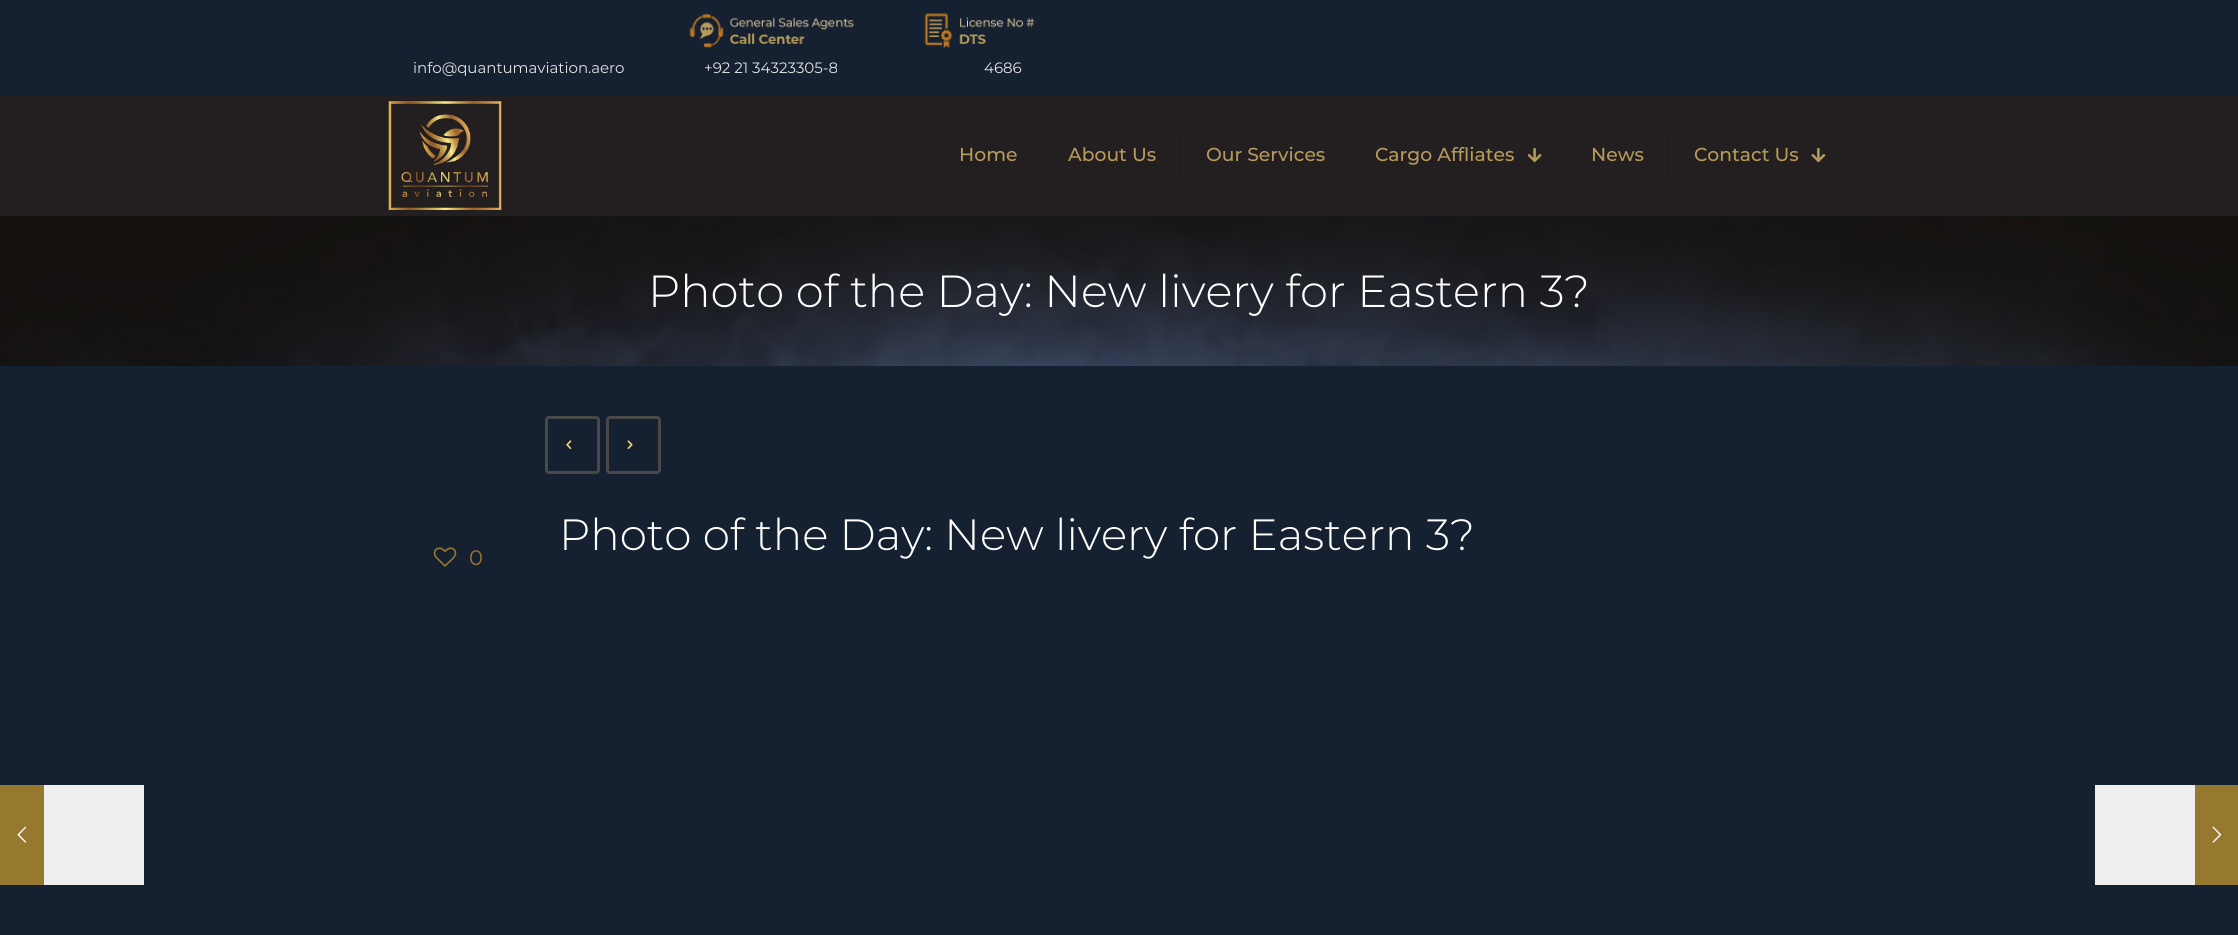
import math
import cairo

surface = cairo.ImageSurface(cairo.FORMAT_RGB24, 2238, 935)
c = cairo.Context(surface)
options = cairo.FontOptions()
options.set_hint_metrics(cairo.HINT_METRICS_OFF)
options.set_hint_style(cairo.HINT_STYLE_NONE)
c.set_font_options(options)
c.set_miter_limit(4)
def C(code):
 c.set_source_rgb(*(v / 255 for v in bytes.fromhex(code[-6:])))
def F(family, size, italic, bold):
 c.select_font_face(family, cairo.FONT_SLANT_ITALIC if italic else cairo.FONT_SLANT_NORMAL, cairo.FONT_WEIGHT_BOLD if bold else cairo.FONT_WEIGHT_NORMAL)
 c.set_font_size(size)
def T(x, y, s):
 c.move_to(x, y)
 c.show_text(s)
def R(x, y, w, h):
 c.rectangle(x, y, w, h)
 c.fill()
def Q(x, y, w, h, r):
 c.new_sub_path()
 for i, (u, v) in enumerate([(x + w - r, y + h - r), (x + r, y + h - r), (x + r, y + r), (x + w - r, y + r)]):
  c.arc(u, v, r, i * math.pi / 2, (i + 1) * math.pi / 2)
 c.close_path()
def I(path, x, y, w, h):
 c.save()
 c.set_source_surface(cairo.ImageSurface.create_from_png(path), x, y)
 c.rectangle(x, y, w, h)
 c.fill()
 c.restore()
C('152030')
c.paint()
F('Montserrat',15,0,0)
C('e2e2e2')
T(413,73,'info@quantumaviation.aero')
I('1.png',689,13,165,35)
T(704,73,'+92 21 34323305-8')
I('2.png',924,13,111,35)
T(984,73,'4686')
C('231f20')
R(0,95,2238,121)
I('3.png',388,101,114,109)
F('Montserrat Medium',18.75,0,0)
C('b59a5a')
T(959,161,'Home')
C('1e1b21')
R(1041,131,1,48)
C('b59a5a')
T(1068,161,'About Us')
C('1e1b21')
R(1180,131,1,48)
C('b59a5a')
T(1206,161,'Our Services')
C('1e1b21')
R(1349,131,1,48)
C('b59a5a')
T(1375,161,'Cargo Affliates')
I('4.png',1527,148,15,15)
C('1e1b21')
R(1565,131,1,48)
C('b59a5a')
T(1591,161,'News')
C('1e1b21')
R(1668,131,1,48)
C('b59a5a')
T(1694,161,'Contact Us')
I('5.png',1811,148,15,15)
I('6.png',0,216,2238,150)
F('Montserrat Light',45,0,0)
C('ffffff')
T(648,307,'Photo of the Day: New livery for Eastern 3?')
Q(546.5,417.5,52,55,2.5)
C('494949')
c.set_line_width(3)
c.stroke()
I('7.png',566,440,6,10)
Q(607.5,417.5,52,55,2.5)
c.stroke()
I('8.png',627,440,6,10)
I('9.png',433,547,24,20)
F('Montserrat',21,0,0)
C('97782f')
T(469,565,'0')
C('131d2c')
R(521,513,1,43)
F('Montserrat Light',43.75,0,0)
C('ffffff')
T(559,550,'Photo of the Day: New livery for Eastern 3?')
C('97782f')
R(0,785,44,100)
I('10.png',17,826,10,17)
C('eeeeee')
R(44,785,100,100)
R(2095,785,100,100)
C('97782f')
R(2195,785,43,100)
I('11.png',2212,826,10,17)
surface.write_to_png('o.png')
